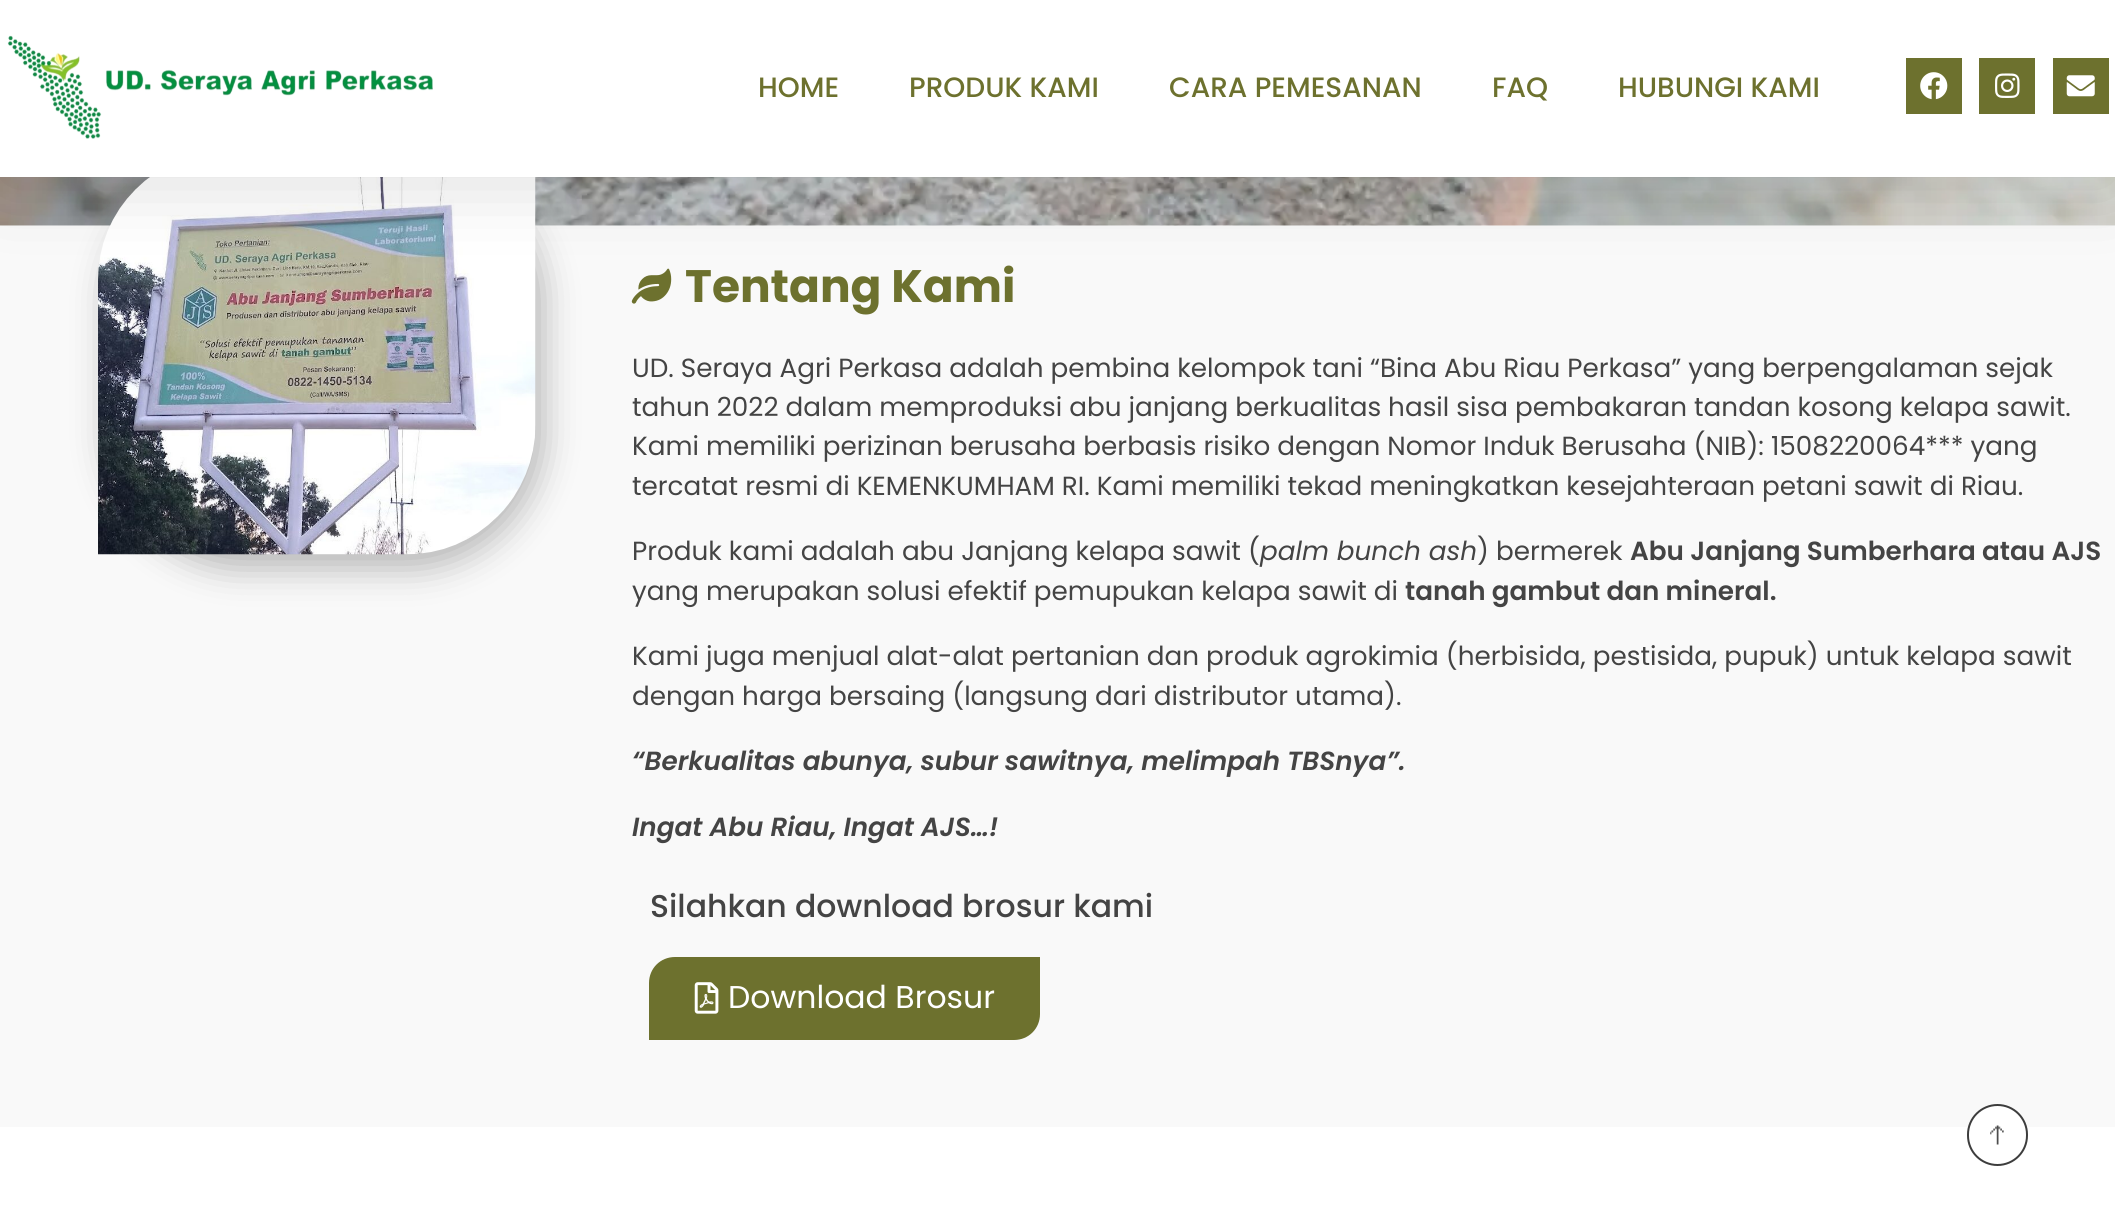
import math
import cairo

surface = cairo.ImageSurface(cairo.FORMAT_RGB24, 2115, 1218)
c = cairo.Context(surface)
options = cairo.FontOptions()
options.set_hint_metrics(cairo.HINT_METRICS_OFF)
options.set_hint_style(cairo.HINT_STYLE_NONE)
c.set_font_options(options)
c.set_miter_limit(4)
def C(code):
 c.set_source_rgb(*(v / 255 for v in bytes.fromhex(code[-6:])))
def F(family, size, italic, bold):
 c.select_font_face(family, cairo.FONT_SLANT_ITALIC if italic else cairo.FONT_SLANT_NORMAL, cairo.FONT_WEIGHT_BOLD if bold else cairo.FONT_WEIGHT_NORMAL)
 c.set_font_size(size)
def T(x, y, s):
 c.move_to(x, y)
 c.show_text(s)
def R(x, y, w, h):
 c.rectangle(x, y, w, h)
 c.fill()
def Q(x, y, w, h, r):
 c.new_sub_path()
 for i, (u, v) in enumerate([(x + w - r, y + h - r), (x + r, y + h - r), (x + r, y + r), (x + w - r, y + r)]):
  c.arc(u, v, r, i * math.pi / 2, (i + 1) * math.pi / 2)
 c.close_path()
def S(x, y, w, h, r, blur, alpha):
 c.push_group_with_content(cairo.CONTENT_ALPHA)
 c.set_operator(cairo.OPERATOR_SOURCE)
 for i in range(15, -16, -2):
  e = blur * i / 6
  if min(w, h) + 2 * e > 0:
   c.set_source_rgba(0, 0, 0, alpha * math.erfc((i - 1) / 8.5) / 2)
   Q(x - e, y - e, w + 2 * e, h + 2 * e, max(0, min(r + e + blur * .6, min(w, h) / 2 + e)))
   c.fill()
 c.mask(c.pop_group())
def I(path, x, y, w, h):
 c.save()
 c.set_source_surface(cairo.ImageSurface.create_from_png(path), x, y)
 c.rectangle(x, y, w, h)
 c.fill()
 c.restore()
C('ffffff')
c.paint()
I('5.png',0,177,2115,49)
C('f9f9f9')
R(0,226,2115,901)
C('000000')
S(107,166,437,403,130,17.5,.27)
I('6.png',98,177,438,378)
I('7.png',631,268,41,36)
S(0,7,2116,177,0,38.5,.14)
C('ffffff')
R(0,0,2115,177)
I('1.png',7,35,426,104)
F('Poppins Medium',28,0,0)
C('6d712e')
T(758,97,'HOME')
T(909,97,'PRODUK KAMI')
T(1169,97,'CARA PEMESANAN')
T(1492,97,'FAQ')
T(1618,97,'HUBUNGI KAMI')
R(1906,58,56,56)
I('2.png',1920,72,28,28)
R(1979,58,56,56)
I('3.png',1995,73,25,25)
R(2053,58,56,56)
I('4.png',2066,75,29,22)
F('Poppins',45.5,0,1)
T(685,302,'Tentang Kami')
F('Poppins',26.25,0,0)
C('444444')
T(632,377,'UD. Seraya Agri Perkasa adalah pembina kelompok tani “Bina Abu Riau Perkasa” yang berpengalaman sejak')
T(632,416,'tahun 2022 dalam memproduksi abu janjang berkualitas hasil sisa pembakaran tandan kosong kelapa sawit.')
T(632,455,'Kami memiliki perizinan berusaha berbasis risiko dengan Nomor Induk Berusaha (NIB): 1508220064*** yang')
T(632,495,'tercatat resmi di KEMENKUMHAM RI. Kami memiliki tekad meningkatkan kesejahteraan petani sawit di Riau.')
T(632,560,'Produk kami adalah abu Janjang kelapa sawit (')
F('Poppins',26.25,1,0)
T(1260,560,'palm bunch ash')
F('Poppins',26.25,0,0)
T(1477,560,') bermerek')
F('Poppins SemiBold',26.25,0,0)
T(1630,560,'Abu Janjang Sumberhara atau AJS')
F('Poppins',26.25,0,0)
T(632,600,'yang merupakan solusi efektif pemupukan kelapa sawit di')
F('Poppins SemiBold',26.25,0,0)
T(1405,600,'tanah gambut dan mineral.')
F('Poppins',26.25,0,0)
T(632,665,'Kami juga menjual alat-alat pertanian dan produk agrokimia (herbisida, pestisida, pupuk) untuk kelapa sawit')
T(632,705,'dengan harga bersaing (langsung dari distributor utama).')
F('Poppins SemiBold',26.25,1,0)
T(632,770,'“Berkualitas abunya, subur sawitnya, melimpah TBSnya”.')
T(632,836,'Ingat Abu Riau, Ingat AJS…!')
F('Poppins Medium',31.5,0,0)
T(650,917,'Silahkan download brosur kami')
C('6d712e')
c.new_path()
c.move_to(675,959)
c.line_to(1038,959)
c.line_to(1038,1014)
c.curve_to(1038,1027.5,1027.5,1038,1014,1038)
c.line_to(651,1038)
c.line_to(651,983)
c.curve_to(651,969.5,661.5,959,675,959)
c.close_path()
c.fill_preserve()
c.set_line_width(4)
c.stroke()
I('8.png',694,982,25,32)
F('Poppins',31.5,0,0)
C('ffffff')
T(728,1008,'Download Brosur')
Q(1968,1105,59,60,29.5)
c.fill_preserve()
C('3d3d3d')
c.set_line_width(2)
c.stroke()
I('9.png',1990,1125,14,20)
surface.write_to_png('o.png')
